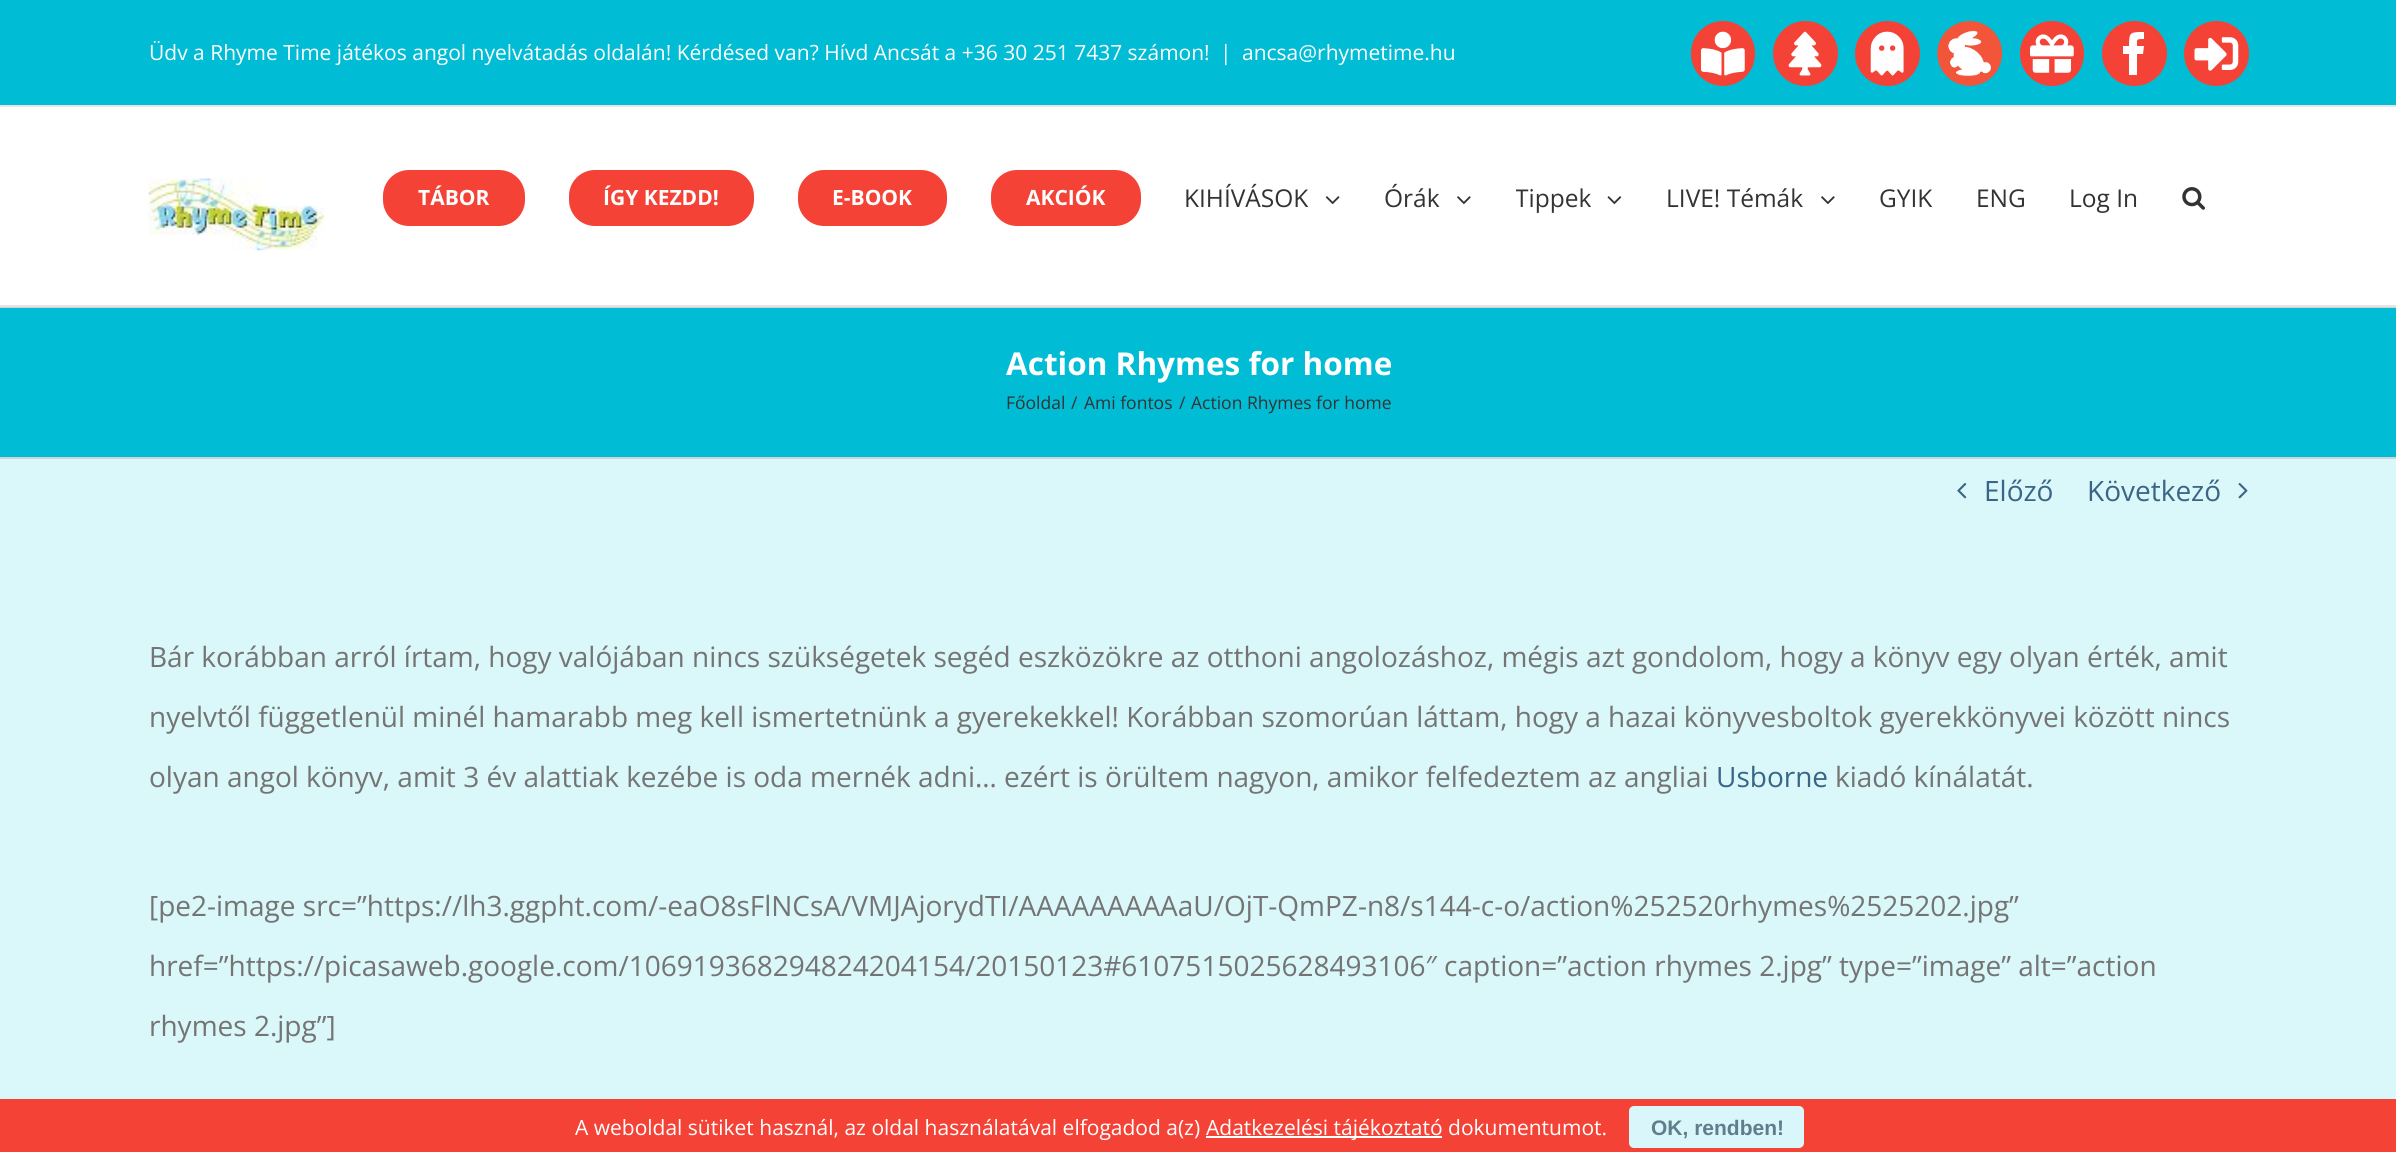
import math
import cairo

surface = cairo.ImageSurface(cairo.FORMAT_RGB24, 2396, 1152)
c = cairo.Context(surface)
options = cairo.FontOptions()
options.set_hint_metrics(cairo.HINT_METRICS_OFF)
options.set_hint_style(cairo.HINT_STYLE_NONE)
c.set_font_options(options)
c.set_miter_limit(4)
def C(code):
 c.set_source_rgb(*(v / 255 for v in bytes.fromhex(code[-6:])))
def F(family, size, italic, bold):
 c.select_font_face(family, cairo.FONT_SLANT_ITALIC if italic else cairo.FONT_SLANT_NORMAL, cairo.FONT_WEIGHT_BOLD if bold else cairo.FONT_WEIGHT_NORMAL)
 c.set_font_size(size)
def T(x, y, s):
 c.move_to(x, y)
 c.show_text(s)
def R(x, y, w, h):
 c.rectangle(x, y, w, h)
 c.fill()
def Q(x, y, w, h, r):
 c.new_sub_path()
 for i, (u, v) in enumerate([(x + w - r, y + h - r), (x + r, y + h - r), (x + r, y + r), (x + w - r, y + r)]):
  c.arc(u, v, r, i * math.pi / 2, (i + 1) * math.pi / 2)
 c.close_path()
def I(path, x, y, w, h):
 c.save()
 c.set_source_surface(cairo.ImageSurface.create_from_png(path), x, y)
 c.rectangle(x, y, w, h)
 c.fill()
 c.restore()
C('daf7f9')
c.paint()
C('00bcd4')
R(0,0,2396,105)
C('e5e5e5')
R(0,105,2396,2)
F('Open Sans',21,0,0)
C('ffffff')
T(149,60,'Üdv a Rhyme Time játékos angol nyelvátadás oldalán! Kérdésed van? Hívd Ancsát a +36 30 251 7437 számon!')
T(1220,60,'|')
T(1242,60,'ancsa@rhymetime.hu')
C('f44336')
Q(1692,22,62,63,31)
c.fill_preserve()
c.stroke()
I('1.png',1701,31,44,45)
c.arc(1805.5,53.5,31.5,0,2 * math.pi)
c.fill_preserve()
c.stroke()
I('2.png',1788,31,34,45)
c.arc(1887.5,53.5,31.5,0,2 * math.pi)
c.fill_preserve()
c.stroke()
I('3.png',1870,31,34,45)
I('4.png',1937,21,65,65)
Q(2021,22,62,63,31)
c.fill_preserve()
c.stroke()
I('5.png',2030,34,44,39)
c.arc(2134.5,53.5,31.5,0,2 * math.pi)
c.fill_preserve()
c.stroke()
C('ffffff')
c.new_path()
c.move_to(2137,75)
c.line_to(2129,75)
c.line_to(2129,54)
c.line_to(2123,54)
c.line_to(2123,46)
c.line_to(2129,46)
c.curve_to(2129,32,2130,32,2144,32)
c.line_to(2144,39)
c.curve_to(2136,39,2137,39,2137,46)
c.line_to(2144,46)
c.line_to(2143,54)
c.line_to(2137,54)
c.close_path()
c.fill()
C('f44336')
c.arc(2216.5,53.5,31.5,0,2 * math.pi)
c.fill_preserve()
c.stroke()
I('6.png',2194,37,45,34)
C('ffffff')
R(0,107,2396,198)
C('e5e5e5')
R(0,305,2396,2)
I('7.png',148,178,176,73)
C('f44336')
Q(383,170,142,56,26)
c.fill()
F('Open Sans',21,0,1)
C('ffffff')
T(418,205,'TÁBOR')
C('f44336')
Q(569,170,185,56,26)
c.fill()
C('ffffff')
T(603,205,'ÍGY KEZDD!')
C('f44336')
Q(798,170,149,56,26)
c.fill()
C('ffffff')
T(832,205,'E-BOOK')
C('f44336')
Q(991,170,150,56,26)
c.fill()
C('ffffff')
T(1026,205,'AKCIÓK')
F('Open Sans',24.5,0,0)
C('333333')
T(1184,207,'KIHÍVÁSOK')
I('8.png',1325,196,15,9)
T(1384,207,'Órák')
I('9.png',1457,196,14,9)
c.save()
c.rectangle(1516,124,150,147)
c.clip()
T(1515,207,'Tippek')
c.restore()
I('10.png',1607,196,15,9)
T(1666,207,'LIVE! Témák')
I('9.png',1821,196,14,9)
T(1879,207,'GYIK')
T(1976,207,'ENG')
T(2069,207,'Log In')
I('11.png',2182,187,23,23)
C('00bcd4')
R(0,308,2396,149)
C('d2d3d4')
R(0,307,2396,1)
R(0,457,2396,2)
F('Open Sans',31.5,0,1)
C('ffffff')
T(1006,375,'Action Rhymes for home')
F('Open Sans',17.5,0,0)
C('333333')
T(1006,409,'Főoldal')
T(1071,409,'/')
T(1084,409,'Ami fontos')
T(1179,409,'/')
T(1191,409,'Action Rhymes for home')
I('12.png',1957,483,10,16)
F('Open Sans',28,0,0)
C('3b6587')
T(1984,501,'Előző')
T(2087,501,'Következő')
I('13.png',2238,482,10,17)
C('747474')
T(149,667,'Bár korábban arról írtam, hogy valójában nincs szükségetek segéd eszközökre az otthoni angolozáshoz, mégis azt gondolom, hogy a könyv egy olyan érték, amit')
T(149,727,'nyelvtől függetlenül minél hamarabb meg kell ismertetnünk a gyerekekkel! Korábban szomorúan láttam, hogy a hazai könyvesboltok gyerekkönyvei között nincs')
T(149,787,'olyan angol könyv, amit 3 év alattiak kezébe is oda mernék adni… ezért is örültem nagyon, amikor felfedeztem az angliai')
C('3b6587')
T(1716,787,'Usborne')
C('747474')
T(1835,787,'kiadó kínálatát.')
T(149,916,'[pe2-image src=”https://lh3.ggpht.com/-eaO8sFlNCsA/VMJAjorydTI/AAAAAAAAAaU/OjT-QmPZ-n8/s144-c-o/action%252520rhymes%2525202.jpg”')
T(149,976,'href=”https://picasaweb.google.com/106919368294824204154/20150123#6107515025628493106″ caption=”action rhymes 2.jpg” type=”image” alt=”action')
T(149,1036,'rhymes 2.jpg”]')
C('f44336')
R(0,1099,2396,53)
F('Open Sans',21,0,0)
C('ffffff')
T(575,1135,'A weboldal sütiket használ, az oldal használatával elfogadod a(z)')
R(1206,1136,236,2)
T(1206,1135,'Adatkezelési tájékoztató dokumentumot.')
C('d9f6fa')
Q(1629,1106,175,42,5)
c.fill()
F('Liberation Sans',21,0,1)
C('607d8b')
T(1651,1135,'OK, rendben!')
surface.write_to_png('o.png')
